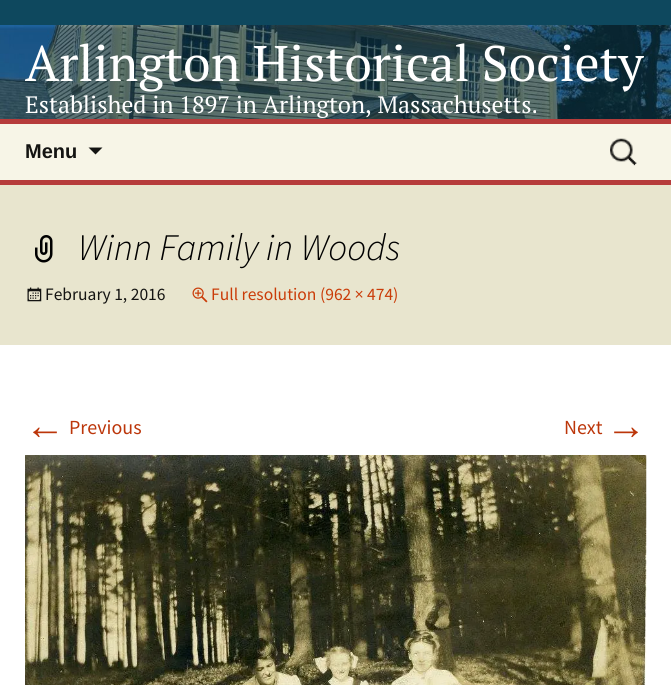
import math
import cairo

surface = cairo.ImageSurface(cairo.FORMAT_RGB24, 671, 685)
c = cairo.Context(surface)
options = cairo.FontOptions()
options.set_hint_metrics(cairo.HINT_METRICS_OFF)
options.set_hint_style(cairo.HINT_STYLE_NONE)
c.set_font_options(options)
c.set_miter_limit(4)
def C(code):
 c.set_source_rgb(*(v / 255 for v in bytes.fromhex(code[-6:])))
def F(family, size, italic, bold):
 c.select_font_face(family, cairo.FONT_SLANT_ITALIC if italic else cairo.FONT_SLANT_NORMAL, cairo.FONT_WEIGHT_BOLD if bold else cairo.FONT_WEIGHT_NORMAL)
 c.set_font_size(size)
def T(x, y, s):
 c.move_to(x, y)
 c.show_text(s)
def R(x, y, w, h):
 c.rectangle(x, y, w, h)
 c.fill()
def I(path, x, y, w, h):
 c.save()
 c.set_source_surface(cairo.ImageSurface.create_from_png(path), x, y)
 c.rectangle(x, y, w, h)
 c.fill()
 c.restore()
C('0e485e')
c.paint()
I('1.png',0,25,671,94)
F('PT Serif',50,0,0)
C('ffffff')
T(25,81,'Arlington Historical Society')
F('PT Serif',23.75,0,0)
T(25,113,'Established in 1897 in Arlington, Massachusetts.')
C('f7f5e7')
R(0,124,671,56)
C('b63c3b')
R(0,119,671,5)
R(0,180,671,5)
F('Liberation Sans',20,0,1)
C('141412')
T(25,158,'Menu')
c.new_path()
c.move_to(88.5,147.5)
c.line_to(102.5,147.5)
c.line_to(95.5,154.5)
c.close_path()
c.fill()
I('2.png',610,138,27,28)
C('e8e5ce')
R(0,185,671,160)
I('3.png',35,235,18,28)
F('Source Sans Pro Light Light',37.5,1,0)
C('000000')
T(78,260,'Winn Family in Woods')
I('4.png',27,287,15,15)
F('Source Sans Pro',17.5,0,0)
C('141412')
T(45,300,'February 1, 2016')
I('5.png',192,287,16,16)
C('ca3c08')
T(211,300,'Full resolution (962 × 474)')
C('ffffff')
R(0,345,671,340)
F('Liberation Sans',40,0,0)
C('bc360a')
T(25,439,'←')
F('Source Sans Pro',20,0,0)
T(69,434,'Previous')
T(564,434,'Next')
F('Liberation Sans',40,0,0)
T(606,439,'→')
I('6.png',25,455,622,230)
surface.write_to_png('o.png')
